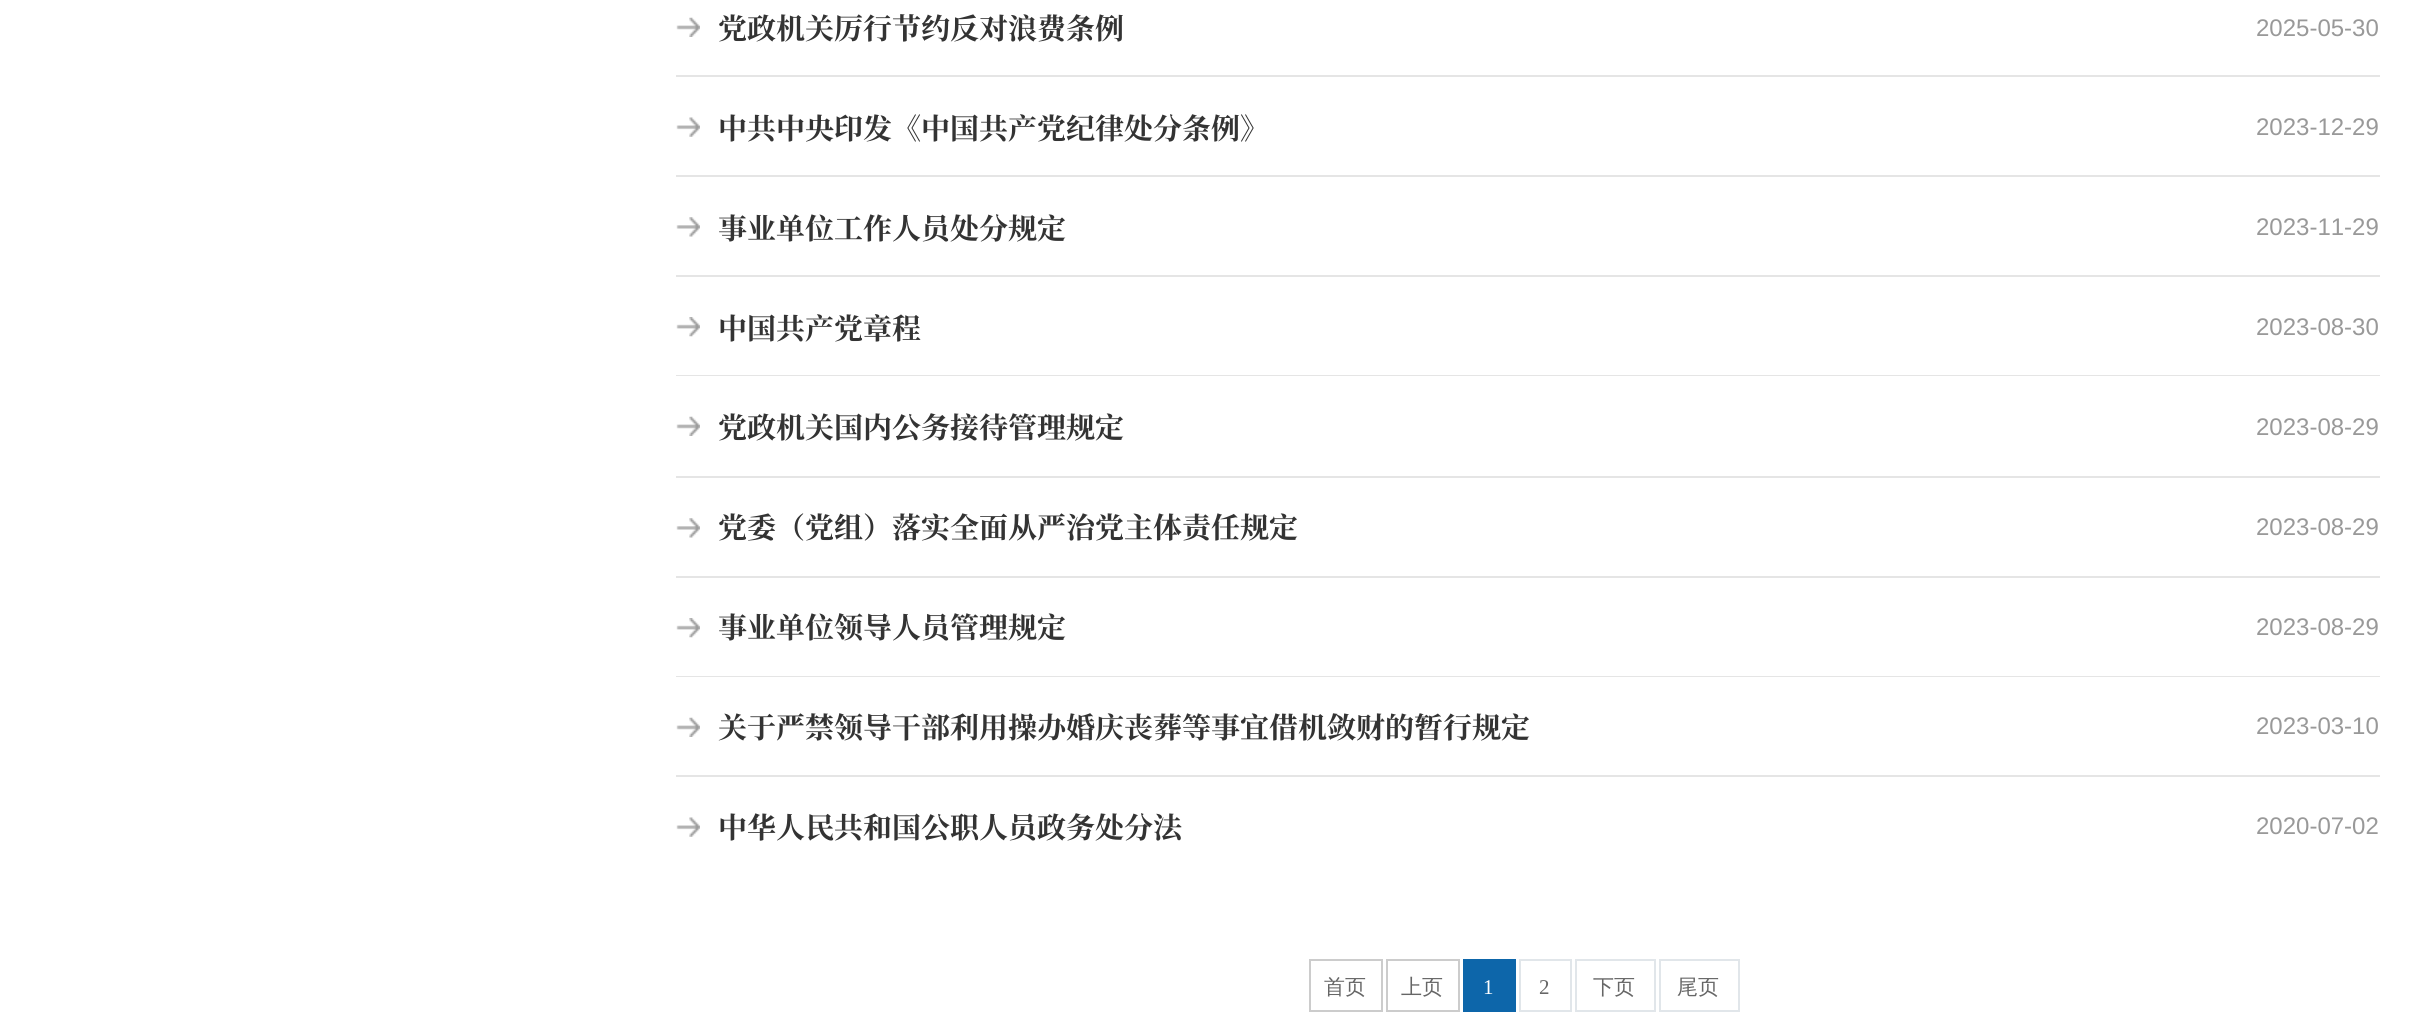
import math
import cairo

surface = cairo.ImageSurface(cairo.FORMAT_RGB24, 2411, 1017)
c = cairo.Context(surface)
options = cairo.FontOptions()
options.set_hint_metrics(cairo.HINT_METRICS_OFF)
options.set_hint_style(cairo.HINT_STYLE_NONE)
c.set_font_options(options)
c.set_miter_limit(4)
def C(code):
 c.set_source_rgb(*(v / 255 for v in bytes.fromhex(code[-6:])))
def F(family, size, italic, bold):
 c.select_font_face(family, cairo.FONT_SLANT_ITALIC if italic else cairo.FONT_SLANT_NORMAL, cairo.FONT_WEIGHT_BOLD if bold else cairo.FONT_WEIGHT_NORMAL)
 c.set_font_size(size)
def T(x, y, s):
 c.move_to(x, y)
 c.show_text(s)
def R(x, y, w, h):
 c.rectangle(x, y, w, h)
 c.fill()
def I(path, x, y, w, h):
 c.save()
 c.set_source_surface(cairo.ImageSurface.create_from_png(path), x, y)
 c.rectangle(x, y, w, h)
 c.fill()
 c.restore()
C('ffffff')
c.paint()
I('1.png',676,17,24,20)
F('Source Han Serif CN',29,0,1)
C('333333')
T(718,39,'党政机关厉行节约反对浪费条例')
F('Liberation Sans',24,0,0)
C('999999')
T(2256,36,'2025-05-30')
C('e5e5e5')
R(676,75,1704,2)
I('2.png',676,117,24,20)
F('Source Han Serif CN',29,0,1)
C('333333')
T(718,139,'中共中央印发《中国共产党纪律处分条例》')
F('Liberation Sans',24,0,0)
C('999999')
T(2256,135,'2023-12-29')
C('e5e5e5')
R(676,175,1704,2)
I('3.png',676,217,24,20)
F('Source Han Serif CN',29,0,1)
C('333333')
T(718,239,'事业单位工作人员处分规定')
F('Liberation Sans',24,0,0)
C('999999')
T(2256,235,'2023-11-29')
C('e5e5e5')
R(676,275,1704,2)
I('4.png',676,317,24,20)
F('Source Han Serif CN',29,0,1)
C('333333')
T(718,339,'中国共产党章程')
F('Liberation Sans',24,0,0)
C('999999')
T(2256,335,'2023-08-30')
C('e5e5e5')
R(676,375,1704,1)
I('1.png',676,416,24,20)
F('Source Han Serif CN',29,0,1)
C('333333')
T(718,438,'党政机关国内公务接待管理规定')
F('Liberation Sans',24,0,0)
C('999999')
T(2256,435,'2023-08-29')
C('e5e5e5')
R(676,476,1704,2)
I('3.png',676,518,24,20)
F('Source Han Serif CN',29,0,1)
C('333333')
T(718,538,'党委（党组）落实全面从严治党主体责任规定')
F('Liberation Sans',24,0,0)
C('999999')
T(2256,535,'2023-08-29')
C('e5e5e5')
R(676,576,1704,2)
I('4.png',676,618,24,20)
F('Source Han Serif CN',29,0,1)
C('333333')
T(718,638,'事业单位领导人员管理规定')
F('Liberation Sans',24,0,0)
C('999999')
T(2256,635,'2023-08-29')
C('e5e5e5')
R(676,676,1704,1)
I('1.png',676,717,24,20)
F('Source Han Serif CN',29,0,1)
C('333333')
T(718,738,'关于严禁领导干部利用操办婚庆丧葬等事宜借机敛财的暂行规定')
F('Liberation Sans',24,0,0)
C('999999')
T(2256,734,'2023-03-10')
C('e5e5e5')
R(676,775,1704,2)
I('2.png',676,817,24,20)
F('Source Han Serif CN',29,0,1)
C('333333')
T(718,838,'中华人民共和国公职人员政务处分法')
F('Liberation Sans',24,0,0)
C('999999')
T(2256,834,'2020-07-02')
c.rectangle(1310,960,72,51)
C('cccccc')
c.stroke()
F('WenQuanYi Zen Hei Medium',21,0,0)
C('666666')
T(1324,994,'首页')
c.rectangle(1387,960,72,51)
C('cccccc')
c.stroke()
C('666666')
T(1401,994,'上页')
C('0d66aa')
R(1463,959,53,53)
F('Liberation Serif',21,0,0)
C('ffffff')
T(1483,994,'1')
c.rectangle(1520,960,51,51)
C('e1e6ea')
c.stroke()
C('666666')
T(1539,994,'2')
c.rectangle(1576,960,79,51)
C('e1e6ea')
c.stroke()
F('WenQuanYi Zen Hei Medium',21,0,0)
C('666666')
T(1593,994,'下页')
c.rectangle(1660,960,79,51)
C('e1e6ea')
c.stroke()
C('666666')
T(1677,994,'尾页')
surface.write_to_png('o.png')
